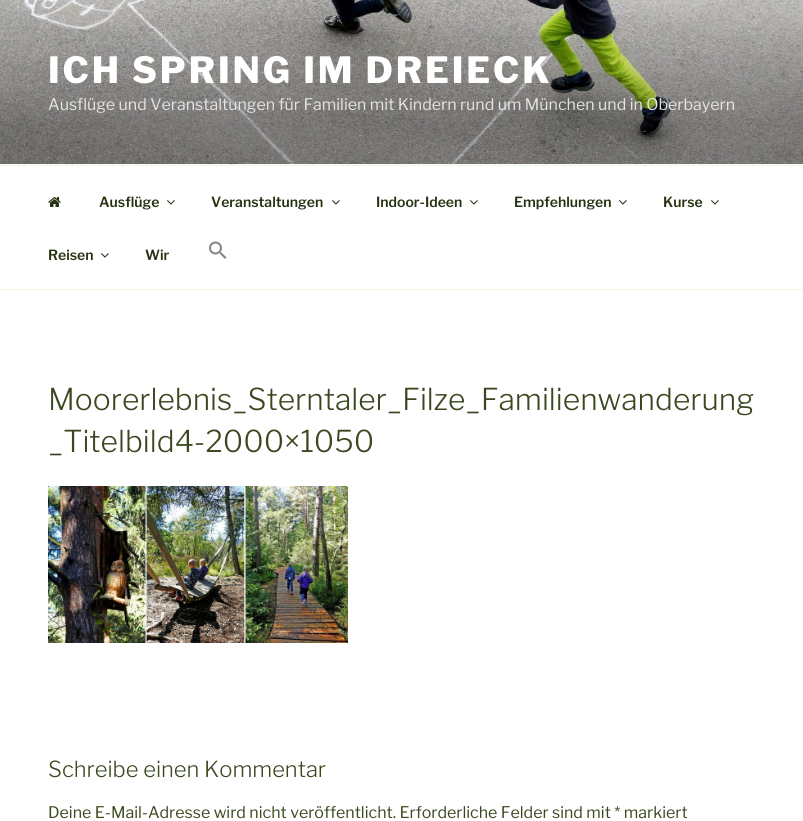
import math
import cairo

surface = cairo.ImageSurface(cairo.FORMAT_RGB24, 803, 821)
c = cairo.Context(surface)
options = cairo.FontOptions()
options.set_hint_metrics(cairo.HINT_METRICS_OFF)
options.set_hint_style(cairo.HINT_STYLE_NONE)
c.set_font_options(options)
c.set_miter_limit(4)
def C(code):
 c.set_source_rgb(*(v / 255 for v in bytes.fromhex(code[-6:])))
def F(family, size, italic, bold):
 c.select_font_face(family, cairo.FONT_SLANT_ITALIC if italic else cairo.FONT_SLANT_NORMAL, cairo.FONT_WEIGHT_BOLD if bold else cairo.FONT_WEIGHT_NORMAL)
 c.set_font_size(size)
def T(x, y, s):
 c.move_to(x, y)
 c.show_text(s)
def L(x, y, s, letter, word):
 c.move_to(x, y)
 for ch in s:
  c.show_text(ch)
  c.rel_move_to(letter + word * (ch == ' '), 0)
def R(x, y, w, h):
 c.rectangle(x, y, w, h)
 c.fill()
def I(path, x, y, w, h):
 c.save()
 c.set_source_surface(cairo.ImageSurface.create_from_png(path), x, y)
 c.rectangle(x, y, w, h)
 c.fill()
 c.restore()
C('ffffff')
c.paint()
C('fbfcf7')
R(0,164,803,1)
I('1.png',0,0,803,164)
F('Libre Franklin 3 Thin',36,0,0)
C('ffffff')
L(48,83,'ICH SPRING IM DREIECK',2.9,0)
F('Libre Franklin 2 Thin',16,0,0)
C('e4e4e3')
T(48,110,'Ausflüge und Veranstaltungen für Familien mit Kindern rund um München und in Oberbayern')
C('f0f6e4')
R(0,165,803,1)
R(0,289,803,1)
I('2.png',48,197,13,10)
F('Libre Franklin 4 Thin',14,0,0)
C('273211')
T(99,207,'Ausflüge')
I('3.png',167,200,8,5)
T(211,207,'Veranstaltungen')
I('3.png',332,200,8,5)
T(376,207,'Indoor-Ideen')
I('3.png',470,200,8,5)
T(514,207,'Empfehlungen')
I('3.png',619,200,8,5)
T(663,207,'Kurse')
I('3.png',711,200,8,5)
T(48,260,'Reisen')
I('3.png',101,253,8,5)
T(145,260,'Wir')
I('4.png',209,241,18,18)
F('Libre Franklin Thin',30,0,0)
C('3a471f')
T(48,410,'Moorerlebnis_Sterntaler_Filze_Familienwanderung')
T(48,452,'_Titelbild4-2000×1050')
I('5.png',48,486,300,157)
F('Libre Franklin Thin',22,0,0)
T(48,777,'Schreibe einen Kommentar')
F('Libre Franklin 2 Thin',16,0,0)
T(48,818,'Deine E-Mail-Adresse wird nicht veröffentlicht. Erforderliche Felder sind mit * markiert')
surface.write_to_png('o.png')
